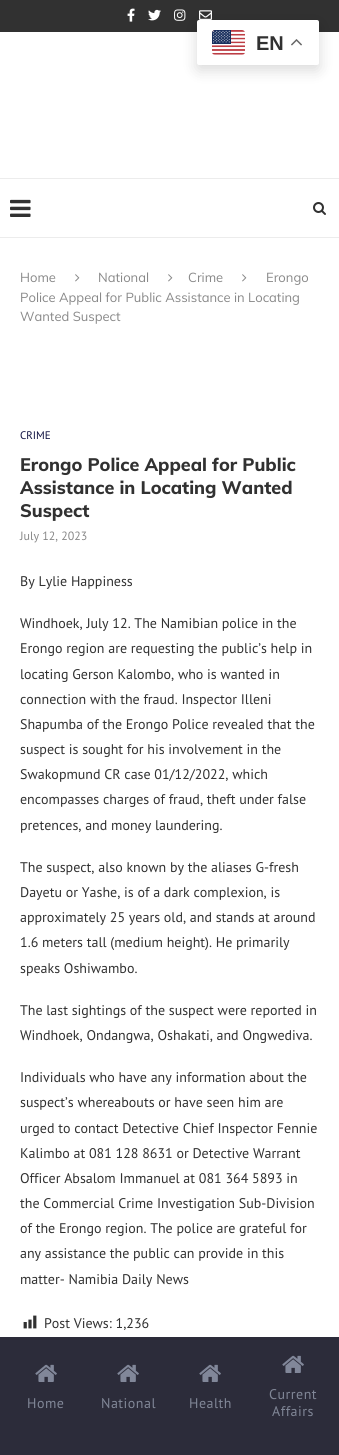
import math
import cairo

surface = cairo.ImageSurface(cairo.FORMAT_RGB24, 339, 1455)
c = cairo.Context(surface)
options = cairo.FontOptions()
options.set_hint_metrics(cairo.HINT_METRICS_OFF)
options.set_hint_style(cairo.HINT_STYLE_NONE)
c.set_font_options(options)
c.set_miter_limit(4)
def C(code):
 c.set_source_rgb(*(v / 255 for v in bytes.fromhex(code[-6:])))
def F(family, size, italic, bold):
 c.select_font_face(family, cairo.FONT_SLANT_ITALIC if italic else cairo.FONT_SLANT_NORMAL, cairo.FONT_WEIGHT_BOLD if bold else cairo.FONT_WEIGHT_NORMAL)
 c.set_font_size(size)
def T(x, y, s):
 c.move_to(x, y)
 c.show_text(s)
def L(x, y, s, letter, word):
 c.move_to(x, y)
 for ch in s:
  c.show_text(ch)
  c.rel_move_to(letter + word * (ch == ' '), 0)
def R(x, y, w, h):
 c.rectangle(x, y, w, h)
 c.fill()
def Q(x, y, w, h, r):
 c.new_sub_path()
 for i, (u, v) in enumerate([(x + w - r, y + h - r), (x + r, y + h - r), (x + r, y + r), (x + w - r, y + r)]):
  c.arc(u, v, r, i * math.pi / 2, (i + 1) * math.pi / 2)
 c.close_path()
def S(x, y, w, h, r, blur, alpha):
 c.push_group_with_content(cairo.CONTENT_ALPHA)
 c.set_operator(cairo.OPERATOR_SOURCE)
 for i in range(15, -16, -2):
  e = blur * i / 6
  if min(w, h) + 2 * e > 0:
   c.set_source_rgba(0, 0, 0, alpha * math.erfc((i - 1) / 8.5) / 2)
   Q(x - e, y - e, w + 2 * e, h + 2 * e, max(0, min(r + e + blur * .6, min(w, h) / 2 + e)))
   c.fill()
 c.mask(c.pop_group())
def I(path, x, y, w, h):
 c.save()
 c.set_source_surface(cairo.ImageSurface.create_from_png(path), x, y)
 c.rectangle(x, y, w, h)
 c.fill()
 c.restore()
C('ffffff')
c.paint()
C('313131')
R(0,0,339,32)
I('5.png',174,9,12,12)
I('6.png',199,10,13,10)
C('000000')
S(197,25,122,45,2,7.5,.15)
C('ffffff')
Q(197,20,122,45,2)
c.fill()
I('1.png',212,30,33,25)
F('Liberation Sans',20,0,1)
C('313131')
T(256,50,'EN')
I('2.png',291,39,11,7)
I('3.png',127,8,8,14)
I('4.png',148,9,13,12)
C('ececec')
R(0,178,339,1)
R(0,237,339,1)
I('7.png',10,199,21,18)
I('8.png',313,202,13,13)
F('Muli',13,0,0)
C('888888')
T(20,282,'Home')
I('9.png',75,274,5,8)
T(98,282,'National')
I('9.png',168,274,5,8)
T(188,282,'Crime')
I('9.png',242,274,5,8)
T(266,282,'Erongo')
T(20,302,'Police Appeal for Public Assistance in Locating')
T(20,321,'Wanted Suspect')
F('PT Sans',11,0,0)
C('0e1040')
T(20,439,'CRIME')
F('Muli ExtraBold',18,0,0)
C('313131')
T(20,471,'Erongo Police Appeal for Public')
T(20,494,'Assistance in Locating Wanted')
T(20,517,'Suspect')
F('PT Sans',12,0,0)
C('888888')
T(20,540,'July 12, 2023')
F('PT Sans',14,0,0)
C('313131')
T(20,586,'By Lylie Happiness')
T(20,628,'Windhoek, July 12. The Namibian police in the')
T(20,653,'Erongo region are requesting the public’s help in')
T(20,679,'locating Gerson Kalombo, who is wanted in')
T(20,704,'connection with the fraud. Inspector Illeni')
T(20,729,'Shapumba of the Erongo Police revealed that the')
T(20,754,'suspect is sought for his involvement in the')
T(20,779,'Swakopmund CR case 01/12/2022, which')
T(20,804,'encompasses charges of fraud, theft under false')
T(20,830,'pretences, and money laundering.')
T(20,872,'The suspect, also known by the aliases G-fresh')
T(20,897,'Dayetu or Yashe, is of a dark complexion, is')
T(20,922,'approximately 25 years old, and stands at around')
T(20,947,'1.6 meters tall (medium height). He primarily')
T(20,973,'speaks Oshiwambo.')
T(20,1015,'The last sightings of the suspect were reported in')
T(20,1040,'Windhoek, Ondangwa, Oshakati, and Ongwediva.')
T(20,1082,'Individuals who have any information about the')
T(20,1107,'suspect’s whereabouts or have seen him are')
T(20,1133,'urged to contact Detective Chief Inspector Fennie')
T(20,1158,'Kalimbo at 081 128 8631 or Detective Warrant')
T(20,1183,'Officer Absalom Immanuel at 081 364 5893 in')
T(20,1208,'the Commercial Crime Investigation Sub-Division')
T(20,1233,'of the Erongo region. The police are grateful for')
T(20,1258,'any assistance the public can provide in this')
T(20,1284,'matter- Namibia Daily News')
I('10.png',23,1315,14,14)
T(44,1328,'Post Views: 1,236')
C('2c2c3a')
R(0,1337,339,118)
I('11.png',35,1364,22,18)
C('818797')
L(27,1408,'Home',.5,0)
I('11.png',117,1364,22,18)
L(101,1408,'National',.5,0)
I('11.png',199,1364,22,18)
L(189,1408,'Health',.5,0)
I('11.png',282,1355,22,18)
L(269,1399,'Current',.5,0)
L(272,1416,'Affairs',.5,0)
surface.write_to_png('o.png')
